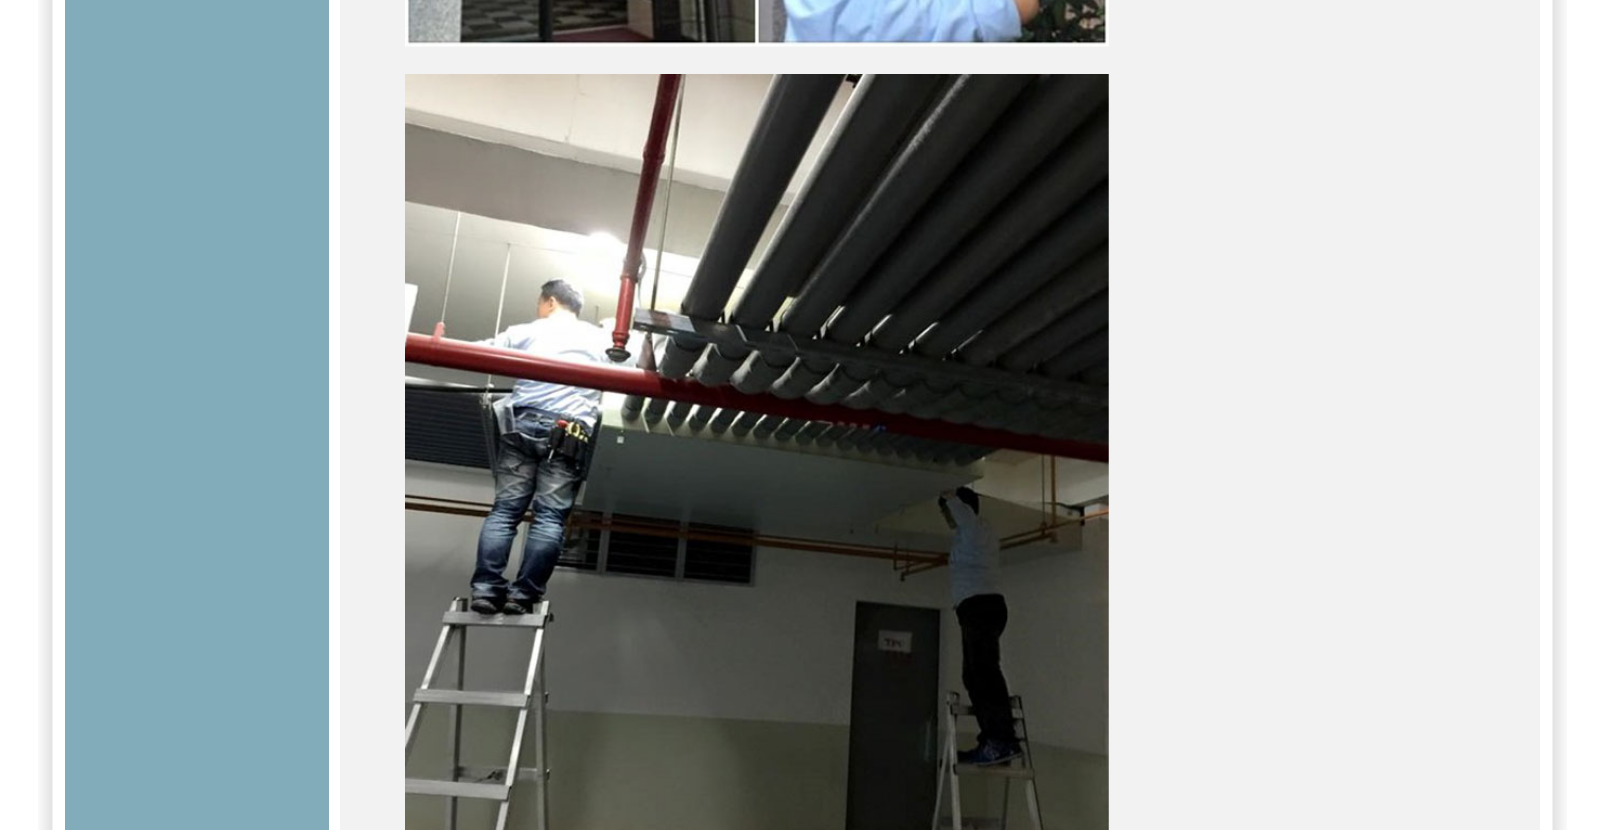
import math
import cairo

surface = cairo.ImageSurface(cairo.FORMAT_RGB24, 1603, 830)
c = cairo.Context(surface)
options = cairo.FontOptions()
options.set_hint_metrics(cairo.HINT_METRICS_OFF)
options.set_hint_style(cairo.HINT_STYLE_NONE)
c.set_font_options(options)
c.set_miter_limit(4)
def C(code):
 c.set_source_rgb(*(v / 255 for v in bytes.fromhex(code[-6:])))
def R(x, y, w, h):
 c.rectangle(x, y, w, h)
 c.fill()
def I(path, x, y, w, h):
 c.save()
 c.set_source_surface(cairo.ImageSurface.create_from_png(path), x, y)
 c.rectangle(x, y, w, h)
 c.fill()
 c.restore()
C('ffffff')
c.paint()
I('1.png',38,0,1529,830)
C('82acba')
R(65,0,264,830)
C('f2f2f2')
R(340,0,1200,830)
I('2.png',405,0,704,47)
I('3.png',405,74,704,756)
surface.write_to_png('o.png')
